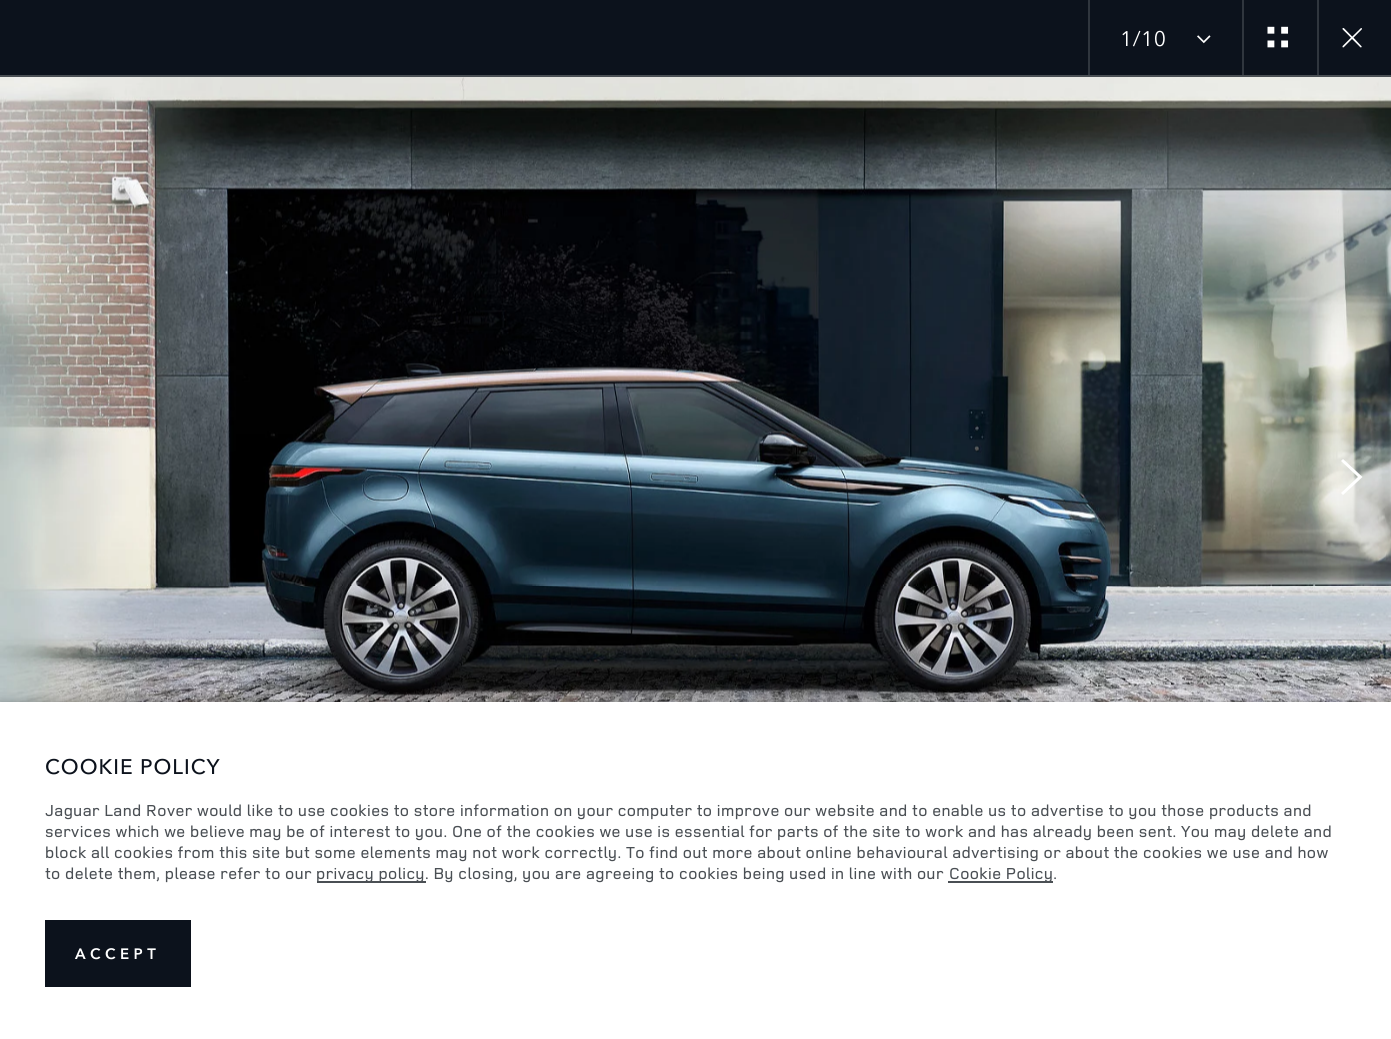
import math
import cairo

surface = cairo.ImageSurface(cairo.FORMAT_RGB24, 1391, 1039)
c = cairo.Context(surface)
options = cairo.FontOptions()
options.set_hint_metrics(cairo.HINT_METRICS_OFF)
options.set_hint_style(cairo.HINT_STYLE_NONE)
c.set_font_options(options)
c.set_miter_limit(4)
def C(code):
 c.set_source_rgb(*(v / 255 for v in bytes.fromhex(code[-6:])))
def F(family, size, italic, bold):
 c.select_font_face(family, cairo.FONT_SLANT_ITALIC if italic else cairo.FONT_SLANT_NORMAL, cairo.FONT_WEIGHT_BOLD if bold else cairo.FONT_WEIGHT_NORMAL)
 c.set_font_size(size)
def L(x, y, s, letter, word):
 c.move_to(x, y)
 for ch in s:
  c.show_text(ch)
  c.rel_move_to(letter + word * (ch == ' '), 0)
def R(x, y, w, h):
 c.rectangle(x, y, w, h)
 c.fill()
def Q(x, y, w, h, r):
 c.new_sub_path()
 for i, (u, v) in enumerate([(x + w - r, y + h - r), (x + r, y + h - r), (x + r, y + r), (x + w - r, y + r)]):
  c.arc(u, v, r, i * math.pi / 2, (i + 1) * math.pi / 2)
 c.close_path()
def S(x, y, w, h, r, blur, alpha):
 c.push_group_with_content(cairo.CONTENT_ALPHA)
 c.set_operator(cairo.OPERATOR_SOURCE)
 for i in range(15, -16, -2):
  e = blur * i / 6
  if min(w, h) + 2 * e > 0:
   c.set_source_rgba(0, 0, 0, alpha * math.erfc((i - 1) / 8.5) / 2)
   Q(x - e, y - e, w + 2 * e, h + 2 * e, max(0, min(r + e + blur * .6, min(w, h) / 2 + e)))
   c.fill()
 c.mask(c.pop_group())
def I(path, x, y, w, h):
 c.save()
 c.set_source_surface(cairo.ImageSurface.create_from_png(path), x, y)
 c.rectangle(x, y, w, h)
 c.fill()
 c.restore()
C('4a4f54')
c.paint()
C('0c121c')
R(0,0,1391,75)
C('30363e')
R(1088,0,2,75)
F('Avenir Next',21,0,0)
C('ffffff')
L(1120,46,'1/10',.5,0)
I('1.png',1197,35,14,9)
C('30363e')
R(1242,0,2,75)
I('2.png',1267,26,22,22)
R(1317,0,2,75)
I('3.png',1342,28,20,20)
I('4.png',0,77,1391,625)
C('ffffff')
c.new_path()
c.move_to(1343,495)
c.line_to(1341,493)
c.line_to(1358,477)
c.line_to(1341,461)
c.line_to(1343,459)
c.line_to(1362.5,477)
c.close_path()
c.fill()
C('010101')
S(0,702,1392,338,0,4.5,.25)
C('ffffff')
R(0,702,1391,337)
F('Avenir Next Medium',21,0,0)
C('0c121c')
L(45,774,'COOKIE POLICY',1,0)
F('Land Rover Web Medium',16.5,0,0)
C('4a4f54')
L(45,816,'Jaguar Land Rover would like to use cookies to store information on your computer to improve our website and to enable us to advertise to you those products and',.45,0)
L(45,837,'services which we believe may be of interest to you. One of the cookies we use is essential for parts of the site to work and has already been sent. You may delete and',.45,0)
L(45,858,'block all cookies from this site but some elements may not work correctly. To find out more about online behavioural advertising or about the cookies we use and how',.45,0)
L(45,879,'to delete them, please refer to our',.45,0)
R(317,881,109,2)
L(316,879,'privacy policy. By closing, you are agreeing to cookies being used in line with our',.45,0)
R(948,881,105,2)
L(949,879,'Cookie Policy.',.45,0)
C('0c121c')
R(45,920,146,67)
F('Avenir Next SemiBold',15,0,0)
C('ffffff')
L(75,959,'ACCEPT',4.5,0)
surface.write_to_png('o.png')
